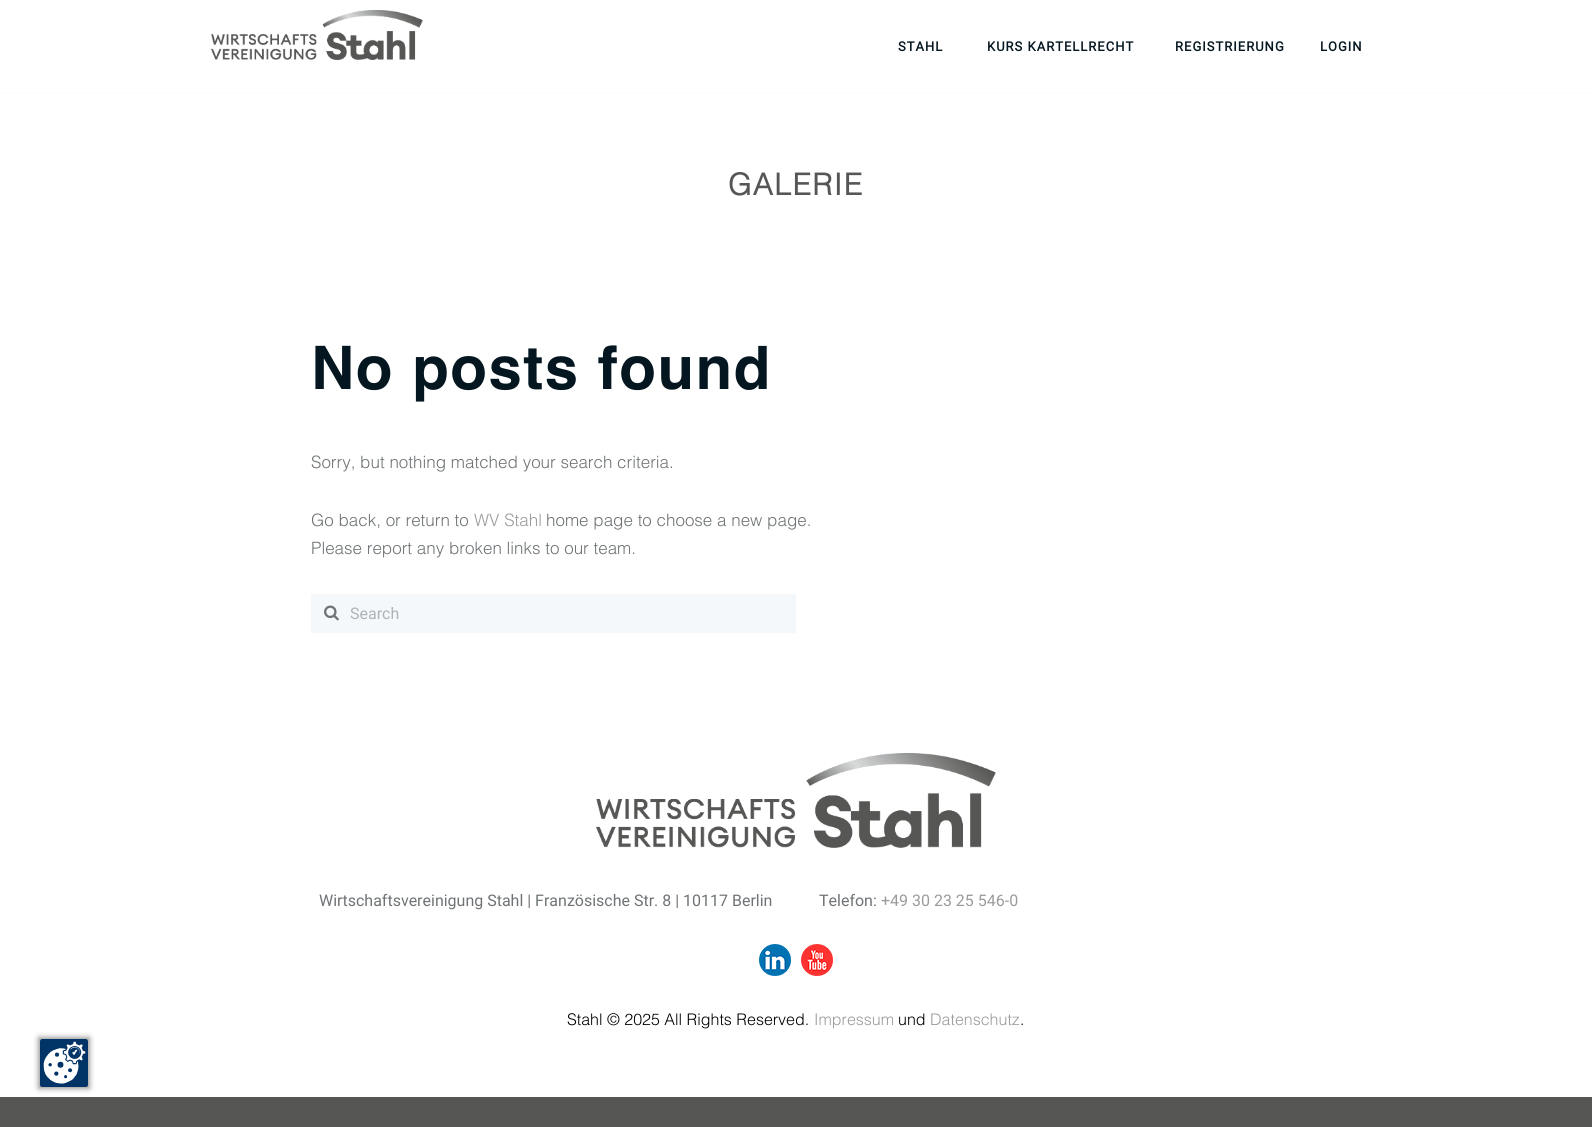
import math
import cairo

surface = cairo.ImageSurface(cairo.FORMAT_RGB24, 1592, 1127)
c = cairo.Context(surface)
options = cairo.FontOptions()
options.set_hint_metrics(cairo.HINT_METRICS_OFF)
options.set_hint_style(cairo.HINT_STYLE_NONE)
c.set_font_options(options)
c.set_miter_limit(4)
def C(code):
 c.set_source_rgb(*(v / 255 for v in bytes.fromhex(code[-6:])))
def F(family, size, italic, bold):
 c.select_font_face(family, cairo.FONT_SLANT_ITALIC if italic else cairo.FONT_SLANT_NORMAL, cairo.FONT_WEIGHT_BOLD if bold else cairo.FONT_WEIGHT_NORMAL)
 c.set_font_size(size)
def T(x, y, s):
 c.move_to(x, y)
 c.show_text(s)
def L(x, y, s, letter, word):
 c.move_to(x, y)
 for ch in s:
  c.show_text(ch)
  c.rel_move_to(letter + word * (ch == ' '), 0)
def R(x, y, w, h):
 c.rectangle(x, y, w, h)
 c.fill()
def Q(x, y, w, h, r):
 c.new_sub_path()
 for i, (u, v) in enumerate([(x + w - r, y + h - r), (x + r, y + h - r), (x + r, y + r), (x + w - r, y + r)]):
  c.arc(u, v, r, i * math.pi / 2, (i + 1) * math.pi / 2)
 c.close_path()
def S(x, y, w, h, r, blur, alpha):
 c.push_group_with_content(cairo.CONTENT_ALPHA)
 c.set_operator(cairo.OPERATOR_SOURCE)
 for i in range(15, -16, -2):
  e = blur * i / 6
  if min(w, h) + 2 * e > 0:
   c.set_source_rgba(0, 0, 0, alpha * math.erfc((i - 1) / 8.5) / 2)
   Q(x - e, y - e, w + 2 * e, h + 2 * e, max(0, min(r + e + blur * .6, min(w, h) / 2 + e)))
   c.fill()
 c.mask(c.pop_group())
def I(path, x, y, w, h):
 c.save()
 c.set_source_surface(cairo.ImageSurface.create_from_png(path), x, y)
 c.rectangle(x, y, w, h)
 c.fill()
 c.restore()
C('565655')
c.paint()
C('ffffff')
R(0,0,1592,1097)
I('1.png',211,10,212,50)
F('Roboto',13,0,1)
C('041721')
L(898,51,'STAHL',1,0)
L(987,51,'KURS KARTELLRECHT',1,0)
L(1175,51,'REGISTRIERUNG',1,0)
L(1320,51,'LOGIN',1,0)
C('fcfcfc')
R(0,93,1592,1)
F('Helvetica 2',30,0,1)
C('565655')
L(728,195,'GALERIE',1.5,0)
F('Helvetica',60,0,1)
C('041721')
L(311,389,'No posts found',1.5,0)
F('Helvetica Light',17,0,0)
C('6f7375')
T(311,468,'Sorry, but nothing matched your search criteria.')
T(311,526,'Go back, or return to')
C('9b9b9b')
T(474,526,'WV Stahl')
C('6f7375')
T(546,526,'home page to choose a new page.')
T(311,554,'Please report any broken links to our team.')
C('f4f8fb')
R(311,594,485,39)
I('2.png',324,605,15,16)
F('Roboto',16,0,0)
C('acb4b6')
T(350,619,'Search')
I('3.png',596,753,400,95)
C('6f7375')
T(319,906,'Wirtschaftsvereinigung Stahl | Französische Str. 8 | 10117 Berlin')
T(819,906,'Telefon:')
C('9b9b9b')
T(881,906,'+49 30 23 25 546-0')
I('4.png',759,944,32,32)
I('5.png',801,944,32,32)
F('Helvetica Light',16,0,0)
C('000000')
T(567,1025,'Stahl © 2025 All Rights Reserved.')
C('9b9b9b')
T(814,1025,'Impressum')
C('000000')
T(898,1025,'und')
C('9b9b9b')
T(930,1025,'Datenschutz')
C('000000')
T(1020,1025,'.')
C('000000')
S(39,1038,50,50,0,3,.5)
I('6.png',40,1039,48,48)
surface.write_to_png('o.png')
